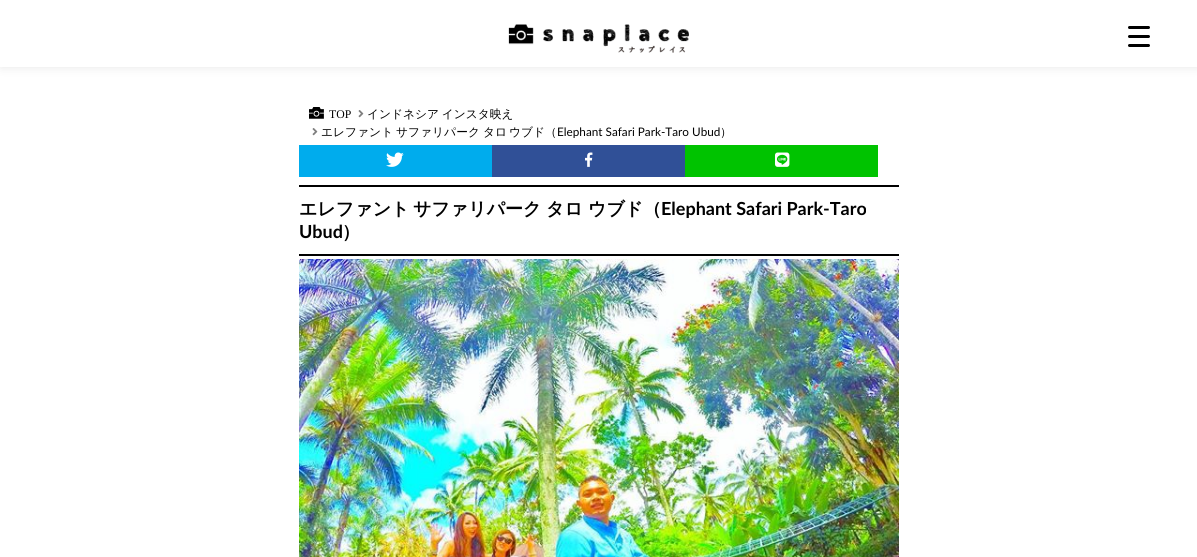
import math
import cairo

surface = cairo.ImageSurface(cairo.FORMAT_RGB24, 1197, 557)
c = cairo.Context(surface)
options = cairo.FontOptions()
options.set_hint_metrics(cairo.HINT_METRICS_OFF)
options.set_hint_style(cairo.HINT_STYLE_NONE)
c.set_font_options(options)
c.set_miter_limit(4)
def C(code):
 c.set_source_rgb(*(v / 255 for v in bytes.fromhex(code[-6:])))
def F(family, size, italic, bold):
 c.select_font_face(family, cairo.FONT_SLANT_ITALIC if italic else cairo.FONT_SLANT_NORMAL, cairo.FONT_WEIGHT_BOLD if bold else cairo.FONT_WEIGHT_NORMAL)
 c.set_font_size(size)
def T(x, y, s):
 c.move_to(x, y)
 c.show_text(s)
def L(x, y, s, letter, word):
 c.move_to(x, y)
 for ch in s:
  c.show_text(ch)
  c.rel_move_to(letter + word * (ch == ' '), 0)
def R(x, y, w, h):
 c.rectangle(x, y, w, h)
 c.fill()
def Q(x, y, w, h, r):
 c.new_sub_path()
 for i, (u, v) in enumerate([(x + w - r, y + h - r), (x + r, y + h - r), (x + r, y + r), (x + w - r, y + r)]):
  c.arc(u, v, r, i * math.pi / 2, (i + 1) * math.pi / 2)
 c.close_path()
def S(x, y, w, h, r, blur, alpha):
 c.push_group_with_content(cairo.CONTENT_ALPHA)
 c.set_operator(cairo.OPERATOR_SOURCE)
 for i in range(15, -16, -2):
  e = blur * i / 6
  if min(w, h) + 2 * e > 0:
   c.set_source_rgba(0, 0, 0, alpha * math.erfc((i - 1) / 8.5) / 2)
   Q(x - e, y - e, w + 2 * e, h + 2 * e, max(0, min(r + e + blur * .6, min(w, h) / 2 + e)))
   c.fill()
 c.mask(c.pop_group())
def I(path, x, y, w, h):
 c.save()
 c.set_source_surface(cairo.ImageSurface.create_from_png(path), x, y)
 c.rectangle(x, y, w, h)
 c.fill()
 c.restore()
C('ffffff')
c.paint()
c.save()
c.rectangle(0,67,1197,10)
c.clip()
C('e6e6e6')
S(1,0,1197,67,0,5,1)
c.restore()
I('1.png',508,24,181,29)
C('000000')
Q(1128,26,22,3,1.5)
c.fill()
Q(1128,35,22,3,1.5)
c.fill()
Q(1128,44,22,3,1.5)
c.fill()
I('2.png',309,107,15,12)
F('Liberation Serif',11.75,0,0)
T(329,118,'TOP')
I('3.png',358,110,6,8)
F('WenQuanYi Zen Hei Medium',11.75,0,0)
L(367,118,'インドネシア インスタ映え',0,-1)
I('3.png',312,128,6,8)
T(321,136,'エレファント')
T(396,136,'サファリパーク')
T(483,136,'タロ')
T(509,136,'ウブド（')
F('Lato',11.75,0,0)
T(557,136,'Elephant Safari Park-Taro Ubud')
F('WenQuanYi Zen Hei Medium',11.75,0,0)
T(720,136,'）')
C('00aced')
R(299,145,193,32)
I('4.png',386,152,18,15)
C('305097')
R(492,145,193,32)
I('5.png',585,152,8,15)
C('00c300')
R(685,145,193,32)
I('6.png',775,152,15,15)
C('000000')
R(299,185,600,2)
R(299,254,600,2)
F('WenQuanYi Zen Hei',18,0,1)
T(299,215,'エレファント')
T(413,215,'サファリパーク')
T(546,215,'タロ')
T(588,215,'ウブド（')
F('Lato',18,0,1)
T(661,215,'Elephant Safari Park-Taro')
T(299,238,'Ubud')
F('WenQuanYi Zen Hei',18,0,1)
T(342,238,'）')
I('7.png',299,259,600,298)
surface.write_to_png('o.png')
